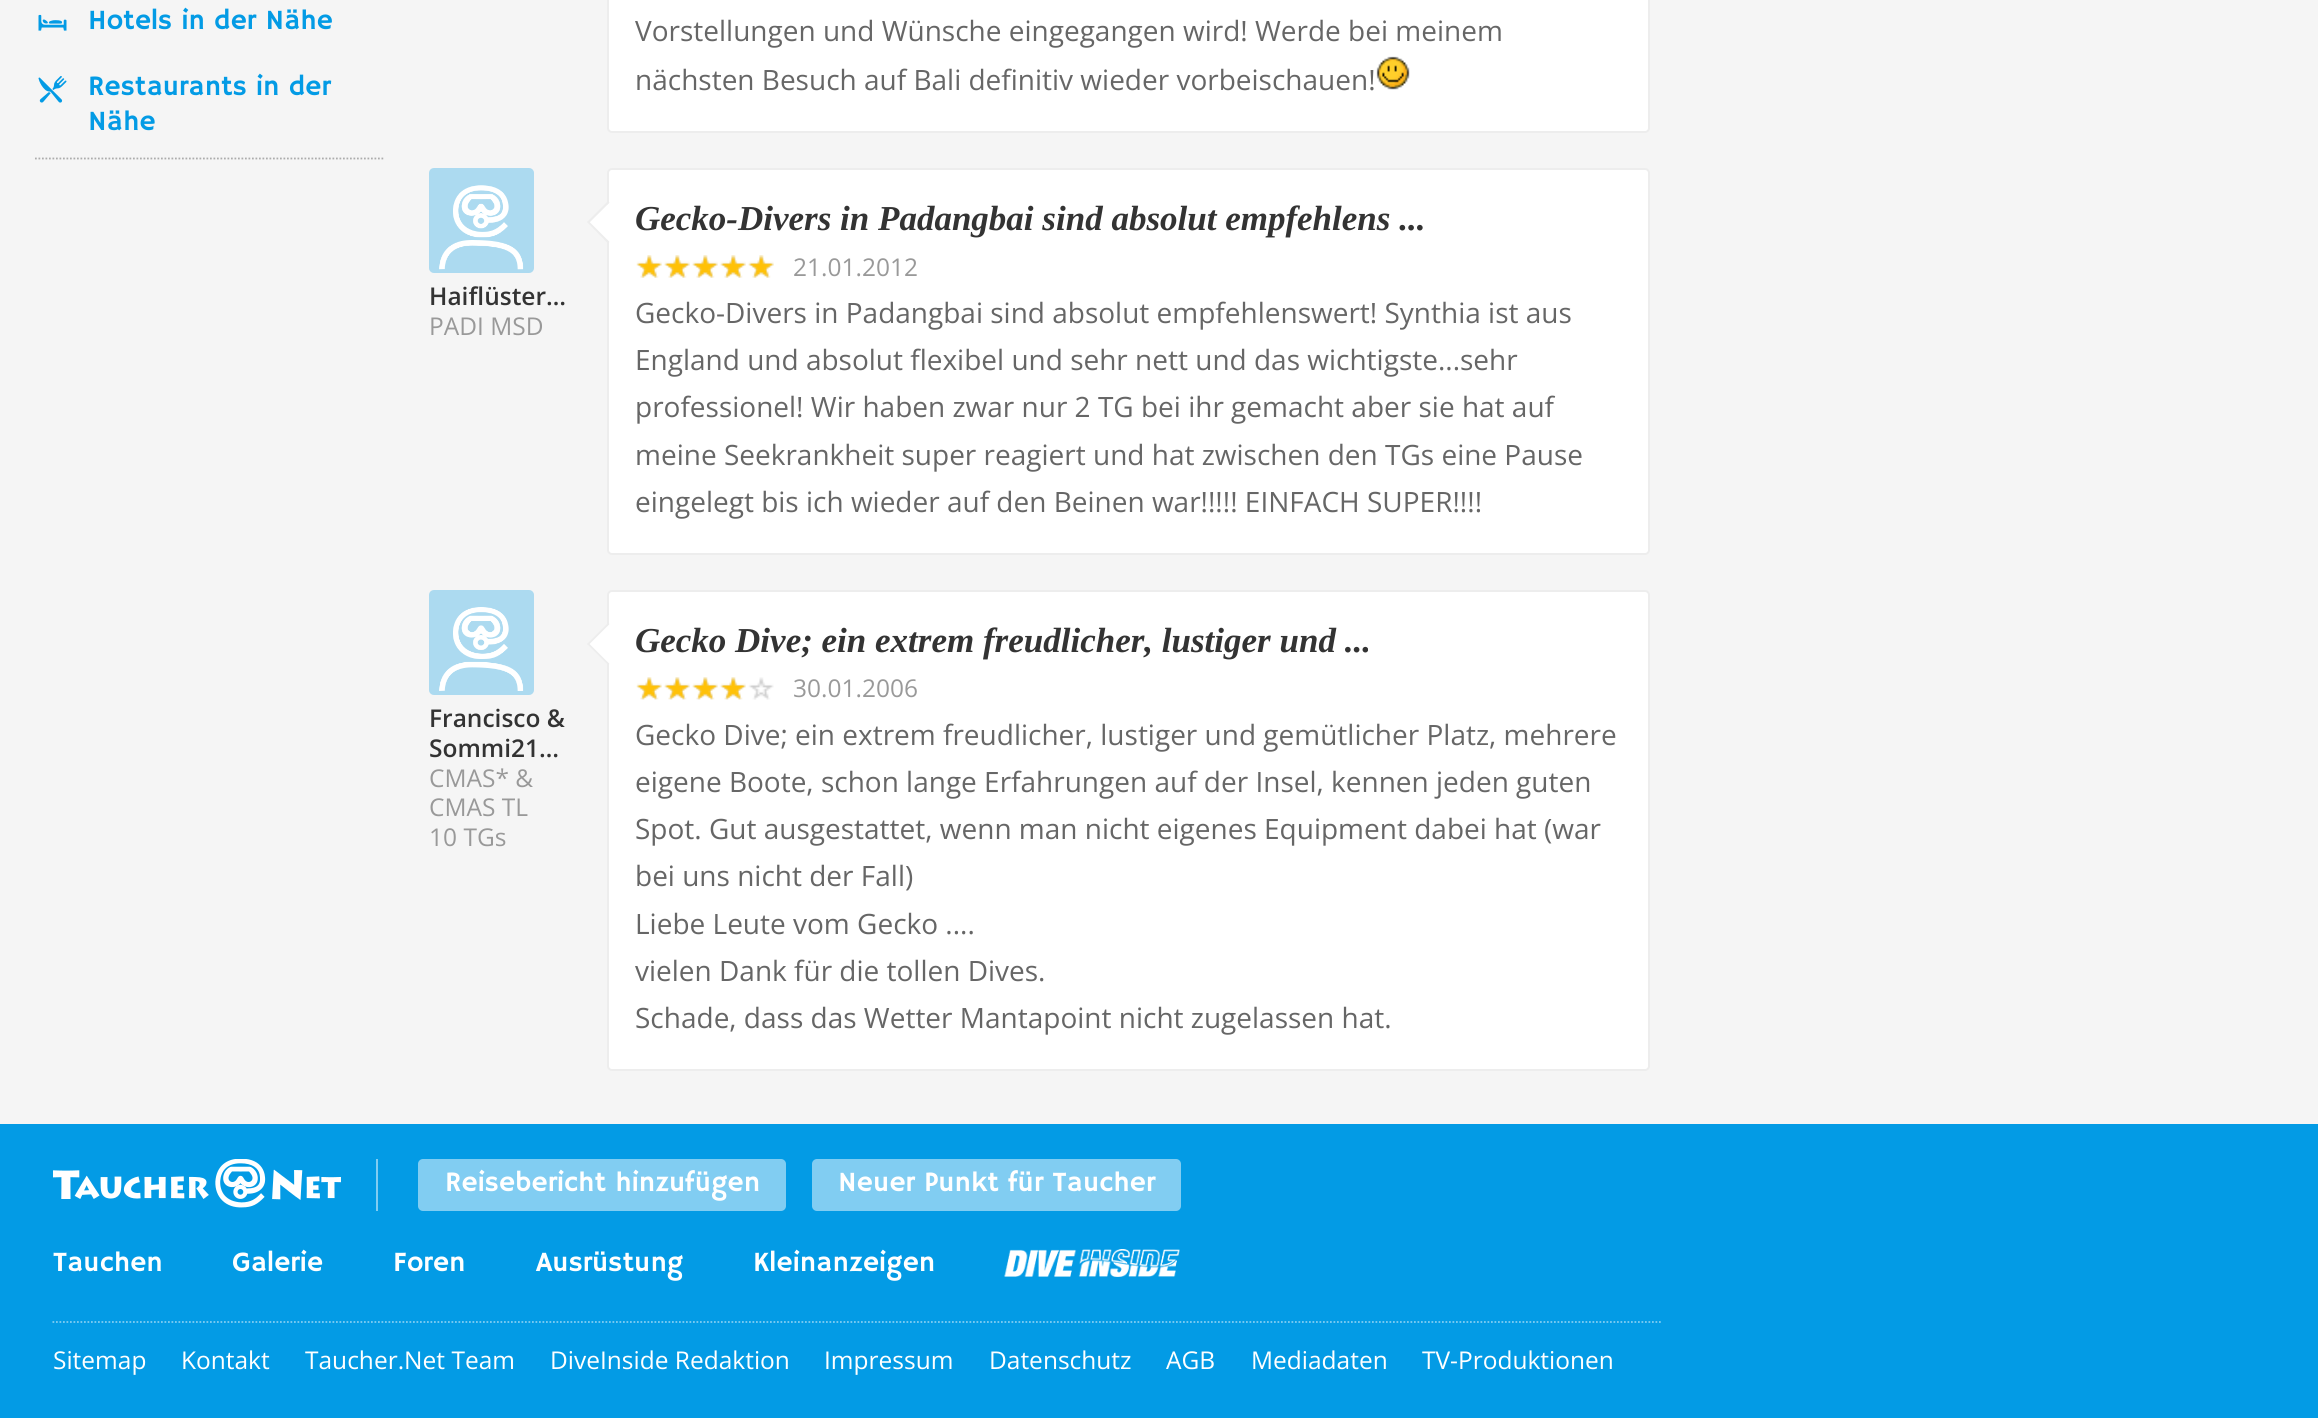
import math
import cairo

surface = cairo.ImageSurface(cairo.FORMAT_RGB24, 2318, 1418)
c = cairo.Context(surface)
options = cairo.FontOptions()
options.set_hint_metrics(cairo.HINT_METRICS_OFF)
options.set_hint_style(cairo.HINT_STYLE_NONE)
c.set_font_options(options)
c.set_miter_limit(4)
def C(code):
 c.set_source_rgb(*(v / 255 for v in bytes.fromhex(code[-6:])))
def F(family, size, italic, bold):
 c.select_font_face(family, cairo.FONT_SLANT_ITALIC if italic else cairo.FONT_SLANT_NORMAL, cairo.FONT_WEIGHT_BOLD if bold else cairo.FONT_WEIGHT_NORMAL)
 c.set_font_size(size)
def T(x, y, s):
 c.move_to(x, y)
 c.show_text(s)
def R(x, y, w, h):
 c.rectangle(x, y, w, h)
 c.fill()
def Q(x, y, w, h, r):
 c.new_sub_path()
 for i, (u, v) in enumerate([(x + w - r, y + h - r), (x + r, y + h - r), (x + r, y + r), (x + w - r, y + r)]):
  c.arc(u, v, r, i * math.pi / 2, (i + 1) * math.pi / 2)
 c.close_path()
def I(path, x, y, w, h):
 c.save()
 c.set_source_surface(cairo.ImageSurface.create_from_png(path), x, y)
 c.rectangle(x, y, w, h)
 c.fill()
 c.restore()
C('f5f5f5')
c.paint()
c.new_path()
c.move_to(35,158.5)
c.line_to(385,158.5)
C('acacac')
c.set_line_width(1.8)
c.set_dash([1.75,1.75])
c.stroke()
I('1.png',38,14,29,17)
F('Hammersmith One',28,0,0)
C('039be5')
T(88,29,'Hotels in der Nähe')
I('2.png',38,76,29,27)
T(88,95,'Restaurants in der')
T(88,130,'Nähe')
C('ffffff')
Q(608,-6,1041,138,4)
c.fill_preserve()
C('ededed')
c.set_line_width(2)
c.set_dash([])
c.stroke()
F('Open Sans',28,0,0)
C('666666')
T(635,41,'Vorstellungen und Wünsche eingegangen wird! Werde bei meinem')
T(635,90,'nächsten Besuch auf Bali definitiv wieder vorbeischauen!')
I('3.png',1376,56,34,34)
C('acdaf0')
Q(429,168,105,105,5)
c.fill()
I('4.png',439,185,85,85)
F('Open Sans SemiBold',24.5,0,0)
C('333333')
T(429,305,'Haiflüster…')
F('Open Sans',24.5,0,0)
C('999999')
T(429,335,'PADI MSD')
C('ffffff')
Q(608,169,1041,385,4)
c.fill_preserve()
C('ededed')
c.stroke()
C('ffffff')
c.new_path()
c.move_to(589.5,222)
c.line_to(609.5,202.5)
c.line_to(629,222)
c.line_to(609.5,242)
c.close_path()
c.fill()
C('ededed')
c.new_path()
c.move_to(587,222)
c.line_to(608,201)
c.line_to(609.5,202.5)
c.line_to(588.5,223.5)
c.close_path()
c.fill()
c.new_path()
c.move_to(587,222)
c.line_to(588.5,221)
c.line_to(609.5,242)
c.line_to(608,243.5)
c.close_path()
c.fill()
F('Liberation Serif',35,1,1)
C('333333')
T(635,230,'Gecko-Divers in Padangbai sind absolut empfehlens ...')
I('5.png',637,255,137,23)
I('6.png',636,255,138,23)
F('Open Sans',24.5,0,0)
C('999999')
T(793,276,'21.01.2012')
F('Open Sans',28,0,0)
C('666666')
T(635,323,'Gecko-Divers in Padangbai sind absolut empfehlenswert! Synthia ist aus')
T(635,370,'England und absolut flexibel und sehr nett und das wichtigste...sehr')
T(635,417,'professionel! Wir haben zwar nur 2 TG bei ihr gemacht aber sie hat auf')
T(635,465,'meine Seekrankheit super reagiert und hat zwischen den TGs eine Pause')
T(635,512,'eingelegt bis ich wieder auf den Beinen war!!!!! EINFACH SUPER!!!!')
C('acdaf0')
Q(429,590,105,105,5)
c.fill()
I('7.png',439,607,85,84)
F('Open Sans SemiBold',24.5,0,0)
C('333333')
T(429,727,'Francisco &')
T(429,757,'Sommi21…')
F('Open Sans',24.5,0,0)
C('999999')
T(429,787,'CMAS* &')
T(429,816,'CMAS TL')
T(429,846,'10 TGs')
C('ffffff')
Q(608,591,1041,479,4)
c.fill_preserve()
C('ededed')
c.stroke()
C('ffffff')
c.new_path()
c.move_to(589.5,644)
c.line_to(609.5,624)
c.line_to(629,644)
c.line_to(609.5,664)
c.close_path()
c.fill()
C('ededed')
c.new_path()
c.move_to(587,644)
c.line_to(608,623)
c.line_to(609.5,624)
c.line_to(588.5,645)
c.close_path()
c.fill()
c.new_path()
c.move_to(587,644)
c.line_to(588.5,643)
c.line_to(609.5,664)
c.line_to(608,665)
c.close_path()
c.fill()
F('Liberation Serif',35,1,1)
C('333333')
T(635,652,'Gecko Dive; ein extrem freudlicher, lustiger und ...')
I('8.png',637,677,137,23)
I('9.png',636,677,110,23)
F('Open Sans',24.5,0,0)
C('999999')
T(793,697,'30.01.2006')
F('Open Sans',28,0,0)
C('666666')
T(635,745,'Gecko Dive; ein extrem freudlicher, lustiger und gemütlicher Platz, mehrere')
T(635,792,'eigene Boote, schon lange Erfahrungen auf der Insel, kennen jeden guten')
T(635,839,'Spot. Gut ausgestattet, wenn man nicht eigenes Equipment dabei hat (war')
T(635,886,'bei uns nicht der Fall)')
T(635,934,'Liebe Leute vom Gecko ....')
T(635,981,'vielen Dank für die tollen Dives.')
T(635,1028,'Schade, dass das Wetter Mantapoint nicht zugelassen hat.')
C('039be5')
R(0,1124,2318,294)
I('10.png',53,1159,288,49)
C('81cdf2')
R(376,1159,2,52)
Q(418,1159,368,52,5)
c.fill()
F('Hammersmith One',28,0,0)
C('ffffff')
T(445,1191,'Reisebericht hinzufügen')
C('81cdf2')
Q(812,1159,369,52,5)
c.fill()
C('ffffff')
T(838,1191,'Neuer Punkt für Taucher')
c.new_path()
c.move_to(52.5,1322)
c.line_to(1662.5,1322)
C('81cdf2')
c.set_line_width(1.8)
c.set_dash([1.75,1.75])
c.stroke()
C('ffffff')
T(53,1271,'Tauchen')
T(232,1271,'Galerie')
T(393,1271,'Foren')
T(536,1271,'Ausrüstung')
T(753,1271,'Kleinanzeigen')
I('11.png',1004,1249,176,28)
F('Open Sans',24.5,0,0)
T(53,1369,'Sitemap')
T(181,1369,'Kontakt')
T(305,1369,'Taucher.Net Team')
T(550,1369,'DiveInside Redaktion')
T(824,1369,'Impressum')
T(989,1369,'Datenschutz')
T(1166,1369,'AGB')
T(1251,1369,'Mediadaten')
T(1422,1369,'TV-Produktionen')
surface.write_to_png('o.png')
